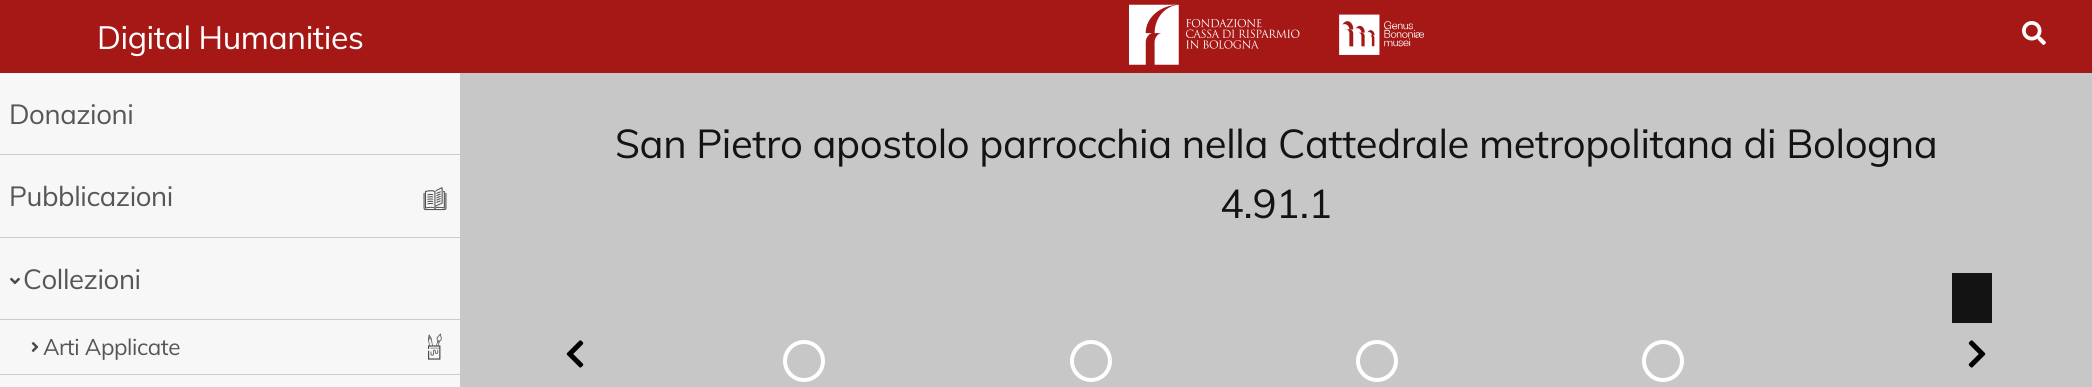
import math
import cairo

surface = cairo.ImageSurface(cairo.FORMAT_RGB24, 2092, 387)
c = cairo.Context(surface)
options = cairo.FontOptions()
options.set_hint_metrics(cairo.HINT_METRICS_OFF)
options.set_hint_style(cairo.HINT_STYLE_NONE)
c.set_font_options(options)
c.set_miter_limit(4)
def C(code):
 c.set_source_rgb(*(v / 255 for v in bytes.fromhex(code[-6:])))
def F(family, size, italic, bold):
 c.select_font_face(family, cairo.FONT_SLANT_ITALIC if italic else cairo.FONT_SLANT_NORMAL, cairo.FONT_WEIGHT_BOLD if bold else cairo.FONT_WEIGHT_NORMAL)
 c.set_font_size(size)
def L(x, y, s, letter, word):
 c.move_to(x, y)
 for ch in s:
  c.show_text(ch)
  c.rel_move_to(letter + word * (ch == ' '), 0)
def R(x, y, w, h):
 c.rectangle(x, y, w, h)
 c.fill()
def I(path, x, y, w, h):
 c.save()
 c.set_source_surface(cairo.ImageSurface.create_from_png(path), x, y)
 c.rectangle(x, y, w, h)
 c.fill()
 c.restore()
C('c7c7c7')
c.paint()
C('a61816')
R(0,0,2092,73)
F('Muli',32,0,0)
C('ffffff')
L(97,49,'Digital Humanities',-.4,0)
C('f7f7f7')
R(0,73,460,314)
C('cccccc')
R(0,154,460,1)
F('Muli',27.5,0,0)
C('565656')
L(9,124,'Donazioni',-.4,0)
C('cccccc')
R(0,237,460,1)
C('565656')
L(9,206,'Pubblicazioni',-.4,0)
I('1.png',423,187,24,24)
C('cccccc')
R(0,319,460,1)
I('2.png',10,277,10,8)
C('565656')
L(23,289,'Collezioni',-.4,0)
C('cccccc')
R(0,374,460,1)
I('3.png',31,342,8,10)
F('Muli',22.5,0,0)
C('565656')
L(43,355,'Arti Applicate',-.4,0)
F('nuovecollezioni',26,0,0)
C('4a4a4a')
L(428,358,'3',-.4,0)
I('4.png',1129,4,171,61)
I('5.png',1339,14,85,41)
I('6.png',2022,21,24,24)
F('Muli',40,0,0)
C('131313')
L(615,158,'San Pietro apostolo parrocchia nella Cattedrale metropolitana di Bologna',-.4,0)
L(1220,218,'4.91.1',-.4,0)
R(1952,273,40,50)
I('7.png',566,340,18,28)
c.arc(804,361,19,0,2 * math.pi)
C('ffffff')
c.set_line_width(4)
c.stroke()
c.arc(1091,361,19,0,2 * math.pi)
c.stroke()
c.arc(1377,361,19,0,2 * math.pi)
c.stroke()
c.arc(1663,361,19,0,2 * math.pi)
c.stroke()
I('8.png',1968,340,18,28)
surface.write_to_png('o.png')
